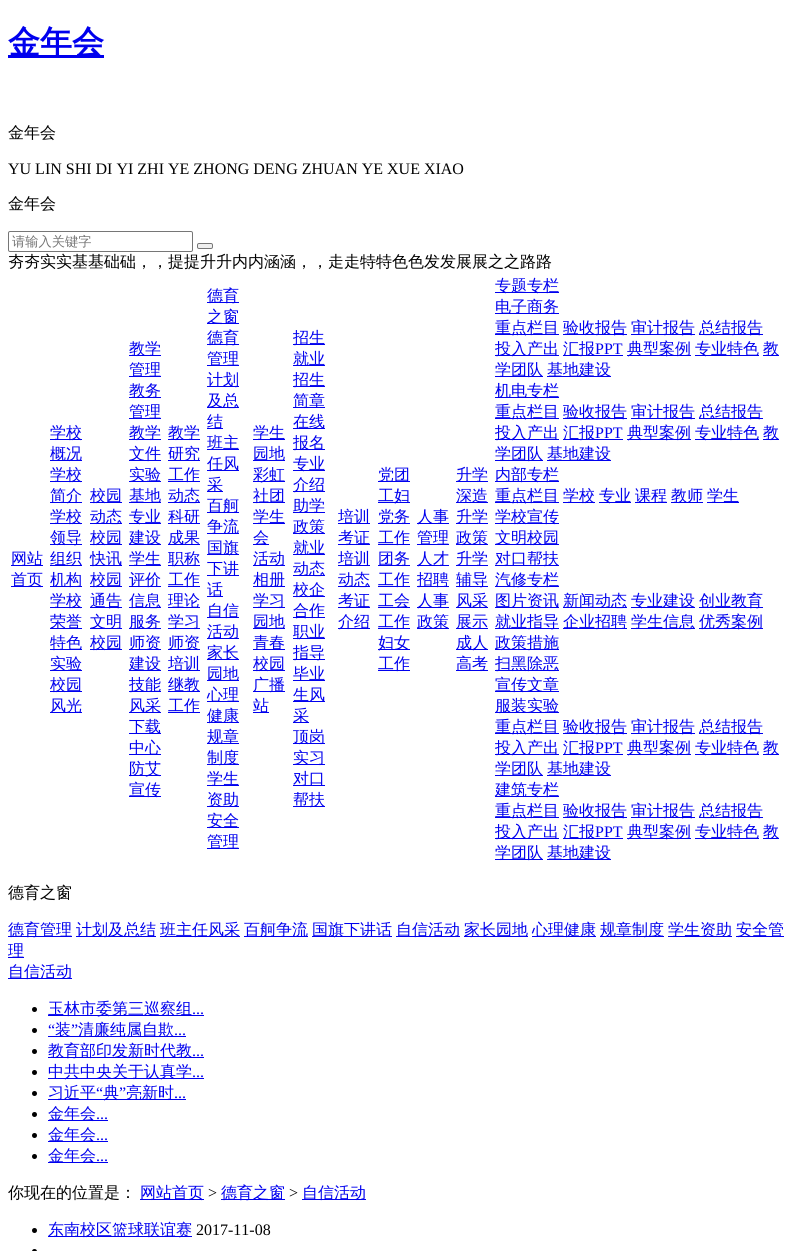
import math
import cairo

surface = cairo.ImageSurface(cairo.FORMAT_RGB24, 793, 1251)
c = cairo.Context(surface)
options = cairo.FontOptions()
options.set_hint_metrics(cairo.HINT_METRICS_OFF)
options.set_hint_style(cairo.HINT_STYLE_NONE)
c.set_font_options(options)
c.set_miter_limit(4)
def C(code):
 c.set_source_rgb(*(v / 255 for v in bytes.fromhex(code[-6:])))
def F(family, size, italic, bold):
 c.select_font_face(family, cairo.FONT_SLANT_ITALIC if italic else cairo.FONT_SLANT_NORMAL, cairo.FONT_WEIGHT_BOLD if bold else cairo.FONT_WEIGHT_NORMAL)
 c.set_font_size(size)
def T(x, y, s):
 c.move_to(x, y)
 c.show_text(s)
def R(x, y, w, h):
 c.rectangle(x, y, w, h)
 c.fill()
def Q(x, y, w, h, r):
 c.new_sub_path()
 for i, (u, v) in enumerate([(x + w - r, y + h - r), (x + r, y + h - r), (x + r, y + r), (x + w - r, y + r)]):
  c.arc(u, v, r, i * math.pi / 2, (i + 1) * math.pi / 2)
 c.close_path()
C('ffffff')
c.paint()
C('0000ee')
R(8,55,96,3)
F('WenQuanYi Zen Hei',32,0,1)
T(8,53,'金年会')
F('WenQuanYi Zen Hei Medium',16,0,0)
C('000000')
T(8,138,'金年会')
F('Liberation Serif',16,0,0)
T(8,174,'YU LIN SHI DI YI ZHI YE ZHONG DENG ZHUAN YE XUE XIAO')
F('WenQuanYi Zen Hei Medium',16,0,0)
T(8,209,'金年会')
Q(8.5,231.5,184,20,1.5)
C('767676')
c.set_line_width(1)
c.stroke()
F('WenQuanYi Zen Hei Medium',13.25,0,0)
C('757575')
T(12,246,'请输入关键字')
C('efefef')
Q(197.5,243.5,15,5,1.5)
c.fill_preserve()
C('767676')
c.stroke()
F('WenQuanYi Zen Hei Medium',16,0,0)
C('000000')
T(8,267,'夯夯实实基基础础，，提提升升内内涵涵，，走走特特色色发发展展之之路路')
C('0000ee')
R(11,565,32,1)
T(11,564,'网站')
R(11,586,32,1)
T(11,585,'首页')
R(50,439,32,1)
T(50,438,'学校')
R(50,460,32,1)
T(50,459,'概况')
R(50,481,32,1)
T(50,480,'学校')
R(50,502,32,1)
T(50,501,'简介')
R(50,523,32,1)
T(50,522,'学校')
R(50,544,32,1)
T(50,543,'领导')
R(50,565,32,1)
T(50,564,'组织')
R(50,586,32,1)
T(50,585,'机构')
R(50,607,32,1)
T(50,606,'学校')
R(50,628,32,1)
T(50,627,'荣誉')
R(50,649,32,1)
T(50,648,'特色')
R(50,670,32,1)
T(50,669,'实验')
R(50,691,32,1)
T(50,690,'校园')
R(50,712,32,1)
T(50,711,'风光')
R(90,502,32,1)
T(90,501,'校园')
R(90,523,32,1)
T(90,522,'动态')
R(90,544,32,1)
T(90,543,'校园')
R(90,565,32,1)
T(90,564,'快讯')
R(90,586,32,1)
T(90,585,'校园')
R(90,607,32,1)
T(90,606,'通告')
R(90,628,32,1)
T(90,627,'文明')
R(90,649,32,1)
T(90,648,'校园')
R(129,355,32,1)
T(129,354,'教学')
R(129,376,32,1)
T(129,375,'管理')
R(129,397,32,1)
T(129,396,'教务')
R(129,418,32,1)
T(129,417,'管理')
R(129,439,32,1)
T(129,438,'教学')
R(129,460,32,1)
T(129,459,'文件')
R(129,481,32,1)
T(129,480,'实验')
R(129,502,32,1)
T(129,501,'基地')
R(129,523,32,1)
T(129,522,'专业')
R(129,544,32,1)
T(129,543,'建设')
R(129,565,32,1)
T(129,564,'学生')
R(129,586,32,1)
T(129,585,'评价')
R(129,607,32,1)
T(129,606,'信息')
R(129,628,32,1)
T(129,627,'服务')
R(129,649,32,1)
T(129,648,'师资')
R(129,670,32,1)
T(129,669,'建设')
R(129,691,32,1)
T(129,690,'技能')
R(129,712,32,1)
T(129,711,'风采')
R(129,733,32,1)
T(129,732,'下载')
R(129,754,32,1)
T(129,753,'中心')
R(129,775,32,1)
T(129,774,'防艾')
R(129,796,32,1)
T(129,795,'宣传')
R(168,439,32,1)
T(168,438,'教学')
R(168,460,32,1)
T(168,459,'研究')
R(168,481,32,1)
T(168,480,'工作')
R(168,502,32,1)
T(168,501,'动态')
R(168,523,32,1)
T(168,522,'科研')
R(168,544,32,1)
T(168,543,'成果')
R(168,565,32,1)
T(168,564,'职称')
R(168,586,32,1)
T(168,585,'工作')
R(168,607,32,1)
T(168,606,'理论')
R(168,628,32,1)
T(168,627,'学习')
R(168,649,32,1)
T(168,648,'师资')
R(168,670,32,1)
T(168,669,'培训')
R(168,691,32,1)
T(168,690,'继教')
R(168,712,32,1)
T(168,711,'工作')
R(207,302,32,1)
T(207,301,'德育')
R(207,323,32,1)
T(207,322,'之窗')
R(207,344,32,1)
T(207,343,'德育')
R(207,365,32,1)
T(207,364,'管理')
R(207,386,32,1)
T(207,385,'计划')
R(207,407,32,1)
T(207,406,'及总')
R(207,428,16,1)
T(207,427,'结')
R(207,449,32,1)
T(207,448,'班主')
R(207,470,32,1)
T(207,469,'任风')
R(207,491,16,1)
T(207,490,'采')
R(207,512,32,1)
T(207,511,'百舸')
R(207,533,32,1)
T(207,532,'争流')
R(207,554,32,1)
T(207,553,'国旗')
R(207,575,32,1)
T(207,574,'下讲')
R(207,596,16,1)
T(207,595,'话')
R(207,617,32,1)
T(207,616,'自信')
R(207,638,32,1)
T(207,637,'活动')
R(207,659,32,1)
T(207,658,'家长')
R(207,680,32,1)
T(207,679,'园地')
R(207,701,32,1)
T(207,700,'心理')
R(207,722,32,1)
T(207,721,'健康')
R(207,743,32,1)
T(207,742,'规章')
R(207,764,32,1)
T(207,763,'制度')
R(207,785,32,1)
T(207,784,'学生')
R(207,806,32,1)
T(207,805,'资助')
R(207,827,32,1)
T(207,826,'安全')
R(207,848,32,1)
T(207,847,'管理')
R(253,439,32,1)
T(253,438,'学生')
R(253,460,32,1)
T(253,459,'园地')
R(253,481,32,1)
T(253,480,'彩虹')
R(253,502,32,1)
T(253,501,'社团')
R(253,523,32,1)
T(253,522,'学生')
R(253,544,16,1)
T(253,543,'会')
R(253,565,32,1)
T(253,564,'活动')
R(253,586,32,1)
T(253,585,'相册')
R(253,607,32,1)
T(253,606,'学习')
R(253,628,32,1)
T(253,627,'园地')
R(253,649,32,1)
T(253,648,'青春')
R(253,670,32,1)
T(253,669,'校园')
R(253,691,32,1)
T(253,690,'广播')
R(253,712,16,1)
T(253,711,'站')
R(293,344,32,1)
T(293,343,'招生')
R(293,365,32,1)
T(293,364,'就业')
R(293,386,32,1)
T(293,385,'招生')
R(293,407,32,1)
T(293,406,'简章')
R(293,428,32,1)
T(293,427,'在线')
R(293,449,32,1)
T(293,448,'报名')
R(293,470,32,1)
T(293,469,'专业')
R(293,491,32,1)
T(293,490,'介绍')
R(293,512,32,1)
T(293,511,'助学')
R(293,533,32,1)
T(293,532,'政策')
R(293,554,32,1)
T(293,553,'就业')
R(293,575,32,1)
T(293,574,'动态')
R(293,596,32,1)
T(293,595,'校企')
R(293,617,32,1)
T(293,616,'合作')
R(293,638,32,1)
T(293,637,'职业')
R(293,659,32,1)
T(293,658,'指导')
R(293,680,32,1)
T(293,679,'毕业')
R(293,701,32,1)
T(293,700,'生风')
R(293,722,16,1)
T(293,721,'采')
R(293,743,32,1)
T(293,742,'顶岗')
R(293,764,32,1)
T(293,763,'实习')
R(293,785,32,1)
T(293,784,'对口')
R(293,806,32,1)
T(293,805,'帮扶')
R(338,523,32,1)
T(338,522,'培训')
R(338,544,32,1)
T(338,543,'考证')
R(338,565,32,1)
T(338,564,'培训')
R(338,586,32,1)
T(338,585,'动态')
R(338,607,32,1)
T(338,606,'考证')
R(338,628,32,1)
T(338,627,'介绍')
R(378,481,32,1)
T(378,480,'党团')
R(378,502,32,1)
T(378,501,'工妇')
R(378,523,32,1)
T(378,522,'党务')
R(378,544,32,1)
T(378,543,'工作')
R(378,565,32,1)
T(378,564,'团务')
R(378,586,32,1)
T(378,585,'工作')
R(378,607,32,1)
T(378,606,'工会')
R(378,628,32,1)
T(378,627,'工作')
R(378,649,32,1)
T(378,648,'妇女')
R(378,670,32,1)
T(378,669,'工作')
R(417,523,32,1)
T(417,522,'人事')
R(417,544,32,1)
T(417,543,'管理')
R(417,565,32,1)
T(417,564,'人才')
R(417,586,32,1)
T(417,585,'招聘')
R(417,607,32,1)
T(417,606,'人事')
R(417,628,32,1)
T(417,627,'政策')
R(456,481,32,1)
T(456,480,'升学')
R(456,502,32,1)
T(456,501,'深造')
R(456,523,32,1)
T(456,522,'升学')
R(456,544,32,1)
T(456,543,'政策')
R(456,565,32,1)
T(456,564,'升学')
R(456,586,32,1)
T(456,585,'辅导')
R(456,607,32,1)
T(456,606,'风采')
R(456,628,32,1)
T(456,627,'展示')
R(456,649,32,1)
T(456,648,'成人')
R(456,670,32,1)
T(456,669,'高考')
R(495,292,64,1)
T(495,291,'专题专栏')
R(495,313,64,1)
T(495,312,'电子商务')
R(495,334,64,1)
T(495,333,'重点栏目')
R(563,334,64,1)
T(563,333,'验收报告')
R(631,334,64,1)
T(631,333,'审计报告')
R(699,334,64,1)
T(699,333,'总结报告')
R(495,355,64,1)
T(495,354,'投入产出')
R(563,355,60,1)
T(563,354,'汇报')
F('Liberation Serif',16,0,0)
T(595,354,'PPT')
R(627,355,64,1)
F('WenQuanYi Zen Hei Medium',16,0,0)
T(627,354,'典型案例')
R(695,355,64,1)
T(695,354,'专业特色')
R(763,355,16,1)
T(763,354,'教')
R(495,376,48,1)
T(495,375,'学团队')
R(547,376,64,1)
T(547,375,'基地建设')
R(495,397,64,1)
T(495,396,'机电专栏')
R(495,418,64,1)
T(495,417,'重点栏目')
R(563,418,64,1)
T(563,417,'验收报告')
R(631,418,64,1)
T(631,417,'审计报告')
R(699,418,64,1)
T(699,417,'总结报告')
R(495,439,64,1)
T(495,438,'投入产出')
R(563,439,60,1)
T(563,438,'汇报')
F('Liberation Serif',16,0,0)
T(595,438,'PPT')
R(627,439,64,1)
F('WenQuanYi Zen Hei Medium',16,0,0)
T(627,438,'典型案例')
R(695,439,64,1)
T(695,438,'专业特色')
R(763,439,16,1)
T(763,438,'教')
R(495,460,48,1)
T(495,459,'学团队')
R(547,460,64,1)
T(547,459,'基地建设')
R(495,481,64,1)
T(495,480,'内部专栏')
R(495,502,64,1)
T(495,501,'重点栏目')
R(563,502,32,1)
T(563,501,'学校')
R(599,502,32,1)
T(599,501,'专业')
R(635,502,32,1)
T(635,501,'课程')
R(671,502,32,1)
T(671,501,'教师')
R(707,502,32,1)
T(707,501,'学生')
R(495,523,64,1)
T(495,522,'学校宣传')
R(495,544,64,1)
T(495,543,'文明校园')
R(495,565,64,1)
T(495,564,'对口帮扶')
R(495,586,64,1)
T(495,585,'汽修专栏')
R(495,607,64,1)
T(495,606,'图片资讯')
R(563,607,64,1)
T(563,606,'新闻动态')
R(631,607,64,1)
T(631,606,'专业建设')
R(699,607,64,1)
T(699,606,'创业教育')
R(495,628,64,1)
T(495,627,'就业指导')
R(563,628,64,1)
T(563,627,'企业招聘')
R(631,628,64,1)
T(631,627,'学生信息')
R(699,628,64,1)
T(699,627,'优秀案例')
R(495,649,64,1)
T(495,648,'政策措施')
R(495,670,64,1)
T(495,669,'扫黑除恶')
R(495,691,64,1)
T(495,690,'宣传文章')
R(495,712,64,1)
T(495,711,'服装实验')
R(495,733,64,1)
T(495,732,'重点栏目')
R(563,733,64,1)
T(563,732,'验收报告')
R(631,733,64,1)
T(631,732,'审计报告')
R(699,733,64,1)
T(699,732,'总结报告')
R(495,754,64,1)
T(495,753,'投入产出')
R(563,754,60,1)
T(563,753,'汇报')
F('Liberation Serif',16,0,0)
T(595,753,'PPT')
R(627,754,64,1)
F('WenQuanYi Zen Hei Medium',16,0,0)
T(627,753,'典型案例')
R(695,754,64,1)
T(695,753,'专业特色')
R(763,754,16,1)
T(763,753,'教')
R(495,775,48,1)
T(495,774,'学团队')
R(547,775,64,1)
T(547,774,'基地建设')
R(495,796,64,1)
T(495,795,'建筑专栏')
R(495,817,64,1)
T(495,816,'重点栏目')
R(563,817,64,1)
T(563,816,'验收报告')
R(631,817,64,1)
T(631,816,'审计报告')
R(699,817,64,1)
T(699,816,'总结报告')
R(495,838,64,1)
T(495,837,'投入产出')
R(563,838,60,1)
T(563,837,'汇报')
F('Liberation Serif',16,0,0)
T(595,837,'PPT')
R(627,838,64,1)
F('WenQuanYi Zen Hei Medium',16,0,0)
T(627,837,'典型案例')
R(695,838,64,1)
T(695,837,'专业特色')
R(763,838,16,1)
T(763,837,'教')
R(495,859,48,1)
T(495,858,'学团队')
R(547,859,64,1)
T(547,858,'基地建设')
C('000000')
T(8,898,'德育之窗')
C('0000ee')
R(8,936,64,1)
T(8,935,'德育管理')
R(76,936,80,1)
T(76,935,'计划及总结')
R(160,936,80,1)
T(160,935,'班主任风采')
R(244,936,64,1)
T(244,935,'百舸争流')
R(312,936,80,1)
T(312,935,'国旗下讲话')
R(396,936,64,1)
T(396,935,'自信活动')
R(464,936,64,1)
T(464,935,'家长园地')
R(532,936,64,1)
T(532,935,'心理健康')
R(600,936,64,1)
T(600,935,'规章制度')
R(668,936,64,1)
T(668,935,'学生资助')
R(736,936,48,1)
T(736,935,'安全管')
R(8,957,16,1)
T(8,956,'理')
R(8,978,64,1)
T(8,977,'自信活动')
C('000000')
c.new_path()
c.arc(34.5,1009.5,2.5,0,2 * math.pi)
c.fill()
C('0000ee')
R(48,1015,156,1)
T(48,1014,'玉林市委第三巡察组')
F('Liberation Serif',16,0,0)
T(192,1014,'...')
T(48,1035,'“')
R(48,1036,138,1)
F('WenQuanYi Zen Hei Medium',16,0,0)
T(55,1035,'装')
F('Liberation Serif',16,0,0)
T(71,1035,'”')
F('WenQuanYi Zen Hei Medium',16,0,0)
T(78,1035,'清廉纯属自欺')
C('000000')
c.new_path()
c.arc(34.5,1030.5,2.5,0,2 * math.pi)
c.fill()
F('Liberation Serif',16,0,0)
C('0000ee')
T(174,1035,'...')
C('000000')
c.new_path()
c.arc(34.5,1051.5,2.5,0,2 * math.pi)
c.fill()
C('0000ee')
R(48,1057,156,1)
F('WenQuanYi Zen Hei Medium',16,0,0)
T(48,1056,'教育部印发新时代教')
F('Liberation Serif',16,0,0)
T(192,1056,'...')
C('000000')
c.new_path()
c.arc(34.5,1072.5,2.5,0,2 * math.pi)
c.fill()
C('0000ee')
R(48,1078,156,1)
F('WenQuanYi Zen Hei Medium',16,0,0)
T(48,1077,'中共中央关于认真学')
F('Liberation Serif',16,0,0)
T(192,1077,'...')
R(48,1099,138,1)
F('WenQuanYi Zen Hei Medium',16,0,0)
T(48,1098,'习近平')
F('Liberation Serif',16,0,0)
T(96,1098,'“')
F('WenQuanYi Zen Hei Medium',16,0,0)
T(103,1098,'典')
F('Liberation Serif',16,0,0)
T(119,1098,'”')
F('WenQuanYi Zen Hei Medium',16,0,0)
T(126,1098,'亮新时')
C('000000')
c.new_path()
c.arc(34.5,1093.5,2.5,0,2 * math.pi)
c.fill()
F('Liberation Serif',16,0,0)
C('0000ee')
T(174,1098,'...')
C('000000')
c.new_path()
c.arc(34.5,1114.5,2.5,0,2 * math.pi)
c.fill()
C('0000ee')
R(48,1120,60,1)
F('WenQuanYi Zen Hei Medium',16,0,0)
T(48,1119,'金年会')
F('Liberation Serif',16,0,0)
T(96,1119,'...')
C('000000')
c.new_path()
c.arc(34.5,1135.5,2.5,0,2 * math.pi)
c.fill()
C('0000ee')
R(48,1141,60,1)
F('WenQuanYi Zen Hei Medium',16,0,0)
T(48,1140,'金年会')
F('Liberation Serif',16,0,0)
T(96,1140,'...')
C('000000')
c.new_path()
c.arc(34.5,1156.5,2.5,0,2 * math.pi)
c.fill()
C('0000ee')
R(48,1162,60,1)
F('WenQuanYi Zen Hei Medium',16,0,0)
T(48,1161,'金年会')
F('Liberation Serif',16,0,0)
T(96,1161,'...')
F('WenQuanYi Zen Hei Medium',16,0,0)
C('000000')
T(8,1198,'你现在的位置是：')
C('0000ee')
R(140,1199,64,1)
T(140,1198,'网站首页')
F('Liberation Serif',16,0,0)
C('000000')
T(208,1198,'>')
C('0000ee')
R(221,1199,64,1)
F('WenQuanYi Zen Hei Medium',16,0,0)
T(221,1198,'德育之窗')
F('Liberation Serif',16,0,0)
C('000000')
T(289,1198,'>')
C('0000ee')
R(302,1199,64,1)
F('WenQuanYi Zen Hei Medium',16,0,0)
T(302,1198,'自信活动')
C('000000')
c.new_path()
c.arc(34.5,1230.5,2.5,0,2 * math.pi)
c.fill()
C('0000ee')
R(48,1236,144,1)
T(48,1235,'东南校区篮球联谊赛')
F('Liberation Serif',16,0,0)
C('000000')
T(196,1235,'2017-11-08')
c.new_path()
c.arc(34.5,1251.5,2.5,0,2 * math.pi)
c.fill()
surface.write_to_png('o.png')
